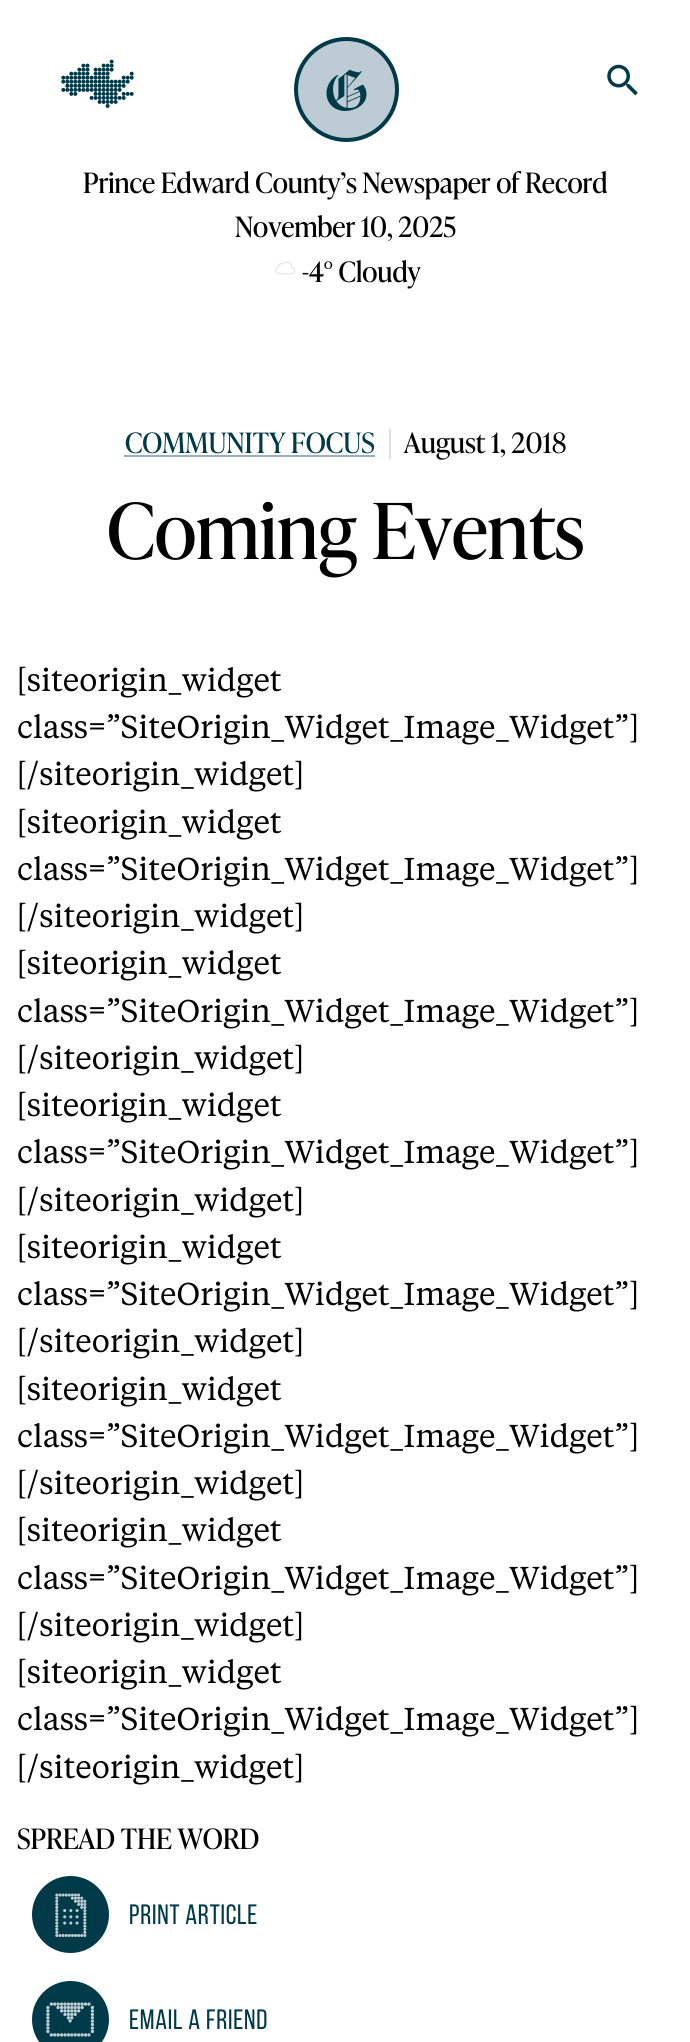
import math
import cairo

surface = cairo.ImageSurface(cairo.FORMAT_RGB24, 690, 2042)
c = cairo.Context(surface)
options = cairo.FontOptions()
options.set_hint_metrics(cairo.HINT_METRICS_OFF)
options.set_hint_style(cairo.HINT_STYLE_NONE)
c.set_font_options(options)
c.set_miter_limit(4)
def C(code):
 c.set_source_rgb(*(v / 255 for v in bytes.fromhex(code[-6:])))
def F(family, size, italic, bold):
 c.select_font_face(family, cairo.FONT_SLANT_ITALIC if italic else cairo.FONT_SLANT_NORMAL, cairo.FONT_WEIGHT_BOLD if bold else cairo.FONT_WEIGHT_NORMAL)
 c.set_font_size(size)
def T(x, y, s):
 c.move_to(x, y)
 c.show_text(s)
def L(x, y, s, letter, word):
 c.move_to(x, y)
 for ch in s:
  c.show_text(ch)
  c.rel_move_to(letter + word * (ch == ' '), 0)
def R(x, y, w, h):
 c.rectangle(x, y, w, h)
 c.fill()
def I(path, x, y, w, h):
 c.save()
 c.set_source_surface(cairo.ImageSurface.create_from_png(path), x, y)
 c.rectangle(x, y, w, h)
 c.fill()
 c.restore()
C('ffffff')
c.paint()
I('1.png',61,59,73,49)
C('bdccd4')
c.arc(346.5,89.5,50.5,0,2 * math.pi)
c.fill_preserve()
C('003a49')
c.set_line_width(4)
c.stroke()
I('2.png',326,69,41,42)
I('3.png',607,64,31,32)
F('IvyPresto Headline',28,0,0)
C('000000')
T(83,193,'Prince Edward County’s Newspaper of Record')
T(235,237,'November 10, 2025')
I('4.png',275,261,21,14)
T(302,282,'-4° Cloudy')
C('003a49')
T(125,453,'COMMUNITY FOCUS')
C('99b0b6')
R(124,455,251,2)
C('e0e0e0')
R(389,429,2,30)
C('000000')
T(404,453,'August 1, 2018')
F('IvyPresto Headline',77,0,0)
T(107,559,'Coming Events')
F('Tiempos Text',31.5,0,0)
T(17,691,'[siteorigin_widget')
T(17,738,'class=”SiteOrigin_Widget_Image_Widget”]')
T(17,785,'[/siteorigin_widget]')
T(17,833,'[siteorigin_widget')
T(17,880,'class=”SiteOrigin_Widget_Image_Widget”]')
T(17,927,'[/siteorigin_widget]')
T(17,974,'[siteorigin_widget')
T(17,1022,'class=”SiteOrigin_Widget_Image_Widget”]')
T(17,1069,'[/siteorigin_widget]')
T(17,1116,'[siteorigin_widget')
T(17,1163,'class=”SiteOrigin_Widget_Image_Widget”]')
T(17,1211,'[/siteorigin_widget]')
T(17,1258,'[siteorigin_widget')
T(17,1305,'class=”SiteOrigin_Widget_Image_Widget”]')
T(17,1352,'[/siteorigin_widget]')
T(17,1400,'[siteorigin_widget')
T(17,1447,'class=”SiteOrigin_Widget_Image_Widget”]')
T(17,1494,'[/siteorigin_widget]')
T(17,1541,'[siteorigin_widget')
T(17,1589,'class=”SiteOrigin_Widget_Image_Widget”]')
T(17,1636,'[/siteorigin_widget]')
T(17,1683,'[siteorigin_widget')
T(17,1730,'class=”SiteOrigin_Widget_Image_Widget”]')
T(17,1778,'[/siteorigin_widget]')
F('IvyPresto Headline',28,0,0)
T(17,1849,'SPREAD THE WORD')
C('003a49')
c.new_path()
c.arc(70.5,1914.5,36.5,0,2 * math.pi)
c.fill_preserve()
c.stroke()
I('5.png',55,1893,32,44)
F('Bebas Neue',28,0,0)
L(129,1924,'Print Article',.75,0)
c.new_path()
c.arc(70.5,2019.5,36.5,0,2 * math.pi)
c.fill_preserve()
c.stroke()
I('6.png',46,2002,49,35)
L(129,2029,'Email A Friend',.75,0)
surface.write_to_png('o.png')
